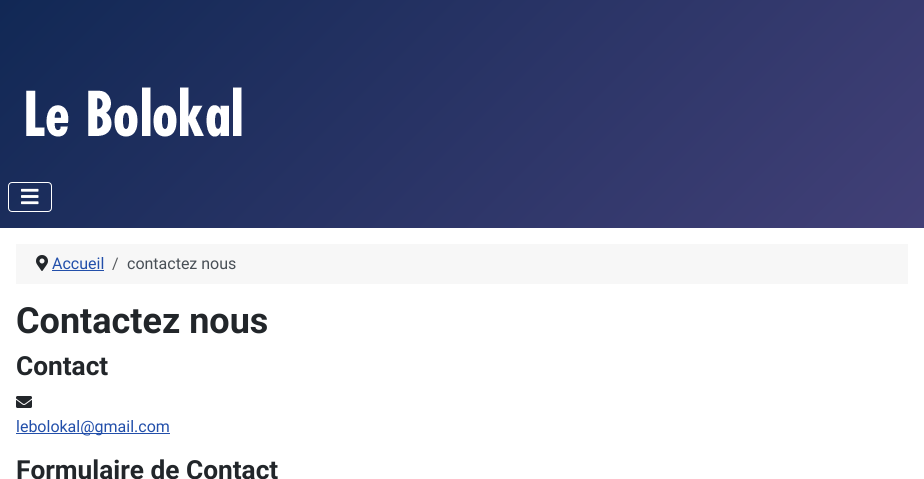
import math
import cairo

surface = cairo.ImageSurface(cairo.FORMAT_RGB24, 924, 479)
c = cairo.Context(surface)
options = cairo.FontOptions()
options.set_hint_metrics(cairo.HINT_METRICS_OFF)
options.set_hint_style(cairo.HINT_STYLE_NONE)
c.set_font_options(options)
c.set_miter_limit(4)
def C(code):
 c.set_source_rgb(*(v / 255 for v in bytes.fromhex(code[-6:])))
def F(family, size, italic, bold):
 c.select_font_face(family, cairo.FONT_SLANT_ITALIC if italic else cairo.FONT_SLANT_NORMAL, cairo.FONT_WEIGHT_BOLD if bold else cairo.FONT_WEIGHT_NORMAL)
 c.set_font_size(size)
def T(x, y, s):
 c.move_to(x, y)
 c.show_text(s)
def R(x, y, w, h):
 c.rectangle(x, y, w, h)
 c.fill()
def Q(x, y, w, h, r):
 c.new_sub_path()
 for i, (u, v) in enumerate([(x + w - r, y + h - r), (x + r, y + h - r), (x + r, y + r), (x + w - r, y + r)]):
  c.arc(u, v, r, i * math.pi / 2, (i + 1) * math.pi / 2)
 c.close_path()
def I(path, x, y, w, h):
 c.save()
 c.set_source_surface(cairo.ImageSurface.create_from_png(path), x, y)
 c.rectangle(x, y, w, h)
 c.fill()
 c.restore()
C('ffffff')
c.paint()
gradient = cairo.LinearGradient(174,-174,750,402)
gradient.add_color_stop_rgba(0,0.067,0.157,0.333,1)
gradient.add_color_stop_rgba(1,0.259,0.251,0.467,1)
c.set_source(gradient)
R(0,0,924,228)
I('1.png',26,87,216,50)
Q(8.5,182.5,43,29,3.5)
C('ffffff')
c.set_line_width(1)
c.stroke()
I('2.png',21,188,18,17)
C('f7f7f7')
R(16,244,892,40)
I('3.png',36,255,12,16)
F('Roboto',16,0,0)
C('224faa')
T(52,269,'Accueil')
R(52,270,52,1)
C('575a5d')
T(112,269,'/')
C('484f56')
T(127,269,'contactez nous')
F('Roboto',36,0,1)
C('22262a')
T(16,333,'Contactez nous')
F('Roboto',26.25,0,1)
T(16,375,'Contact')
I('4.png',16,396,16,12)
C('224faa')
R(16,433,154,1)
F('Roboto',16,0,0)
T(16,432,'lebolokal@gmail.com')
F('Roboto',26.25,0,1)
C('22262a')
T(16,479,'Formulaire de Contact')
surface.write_to_png('o.png')
